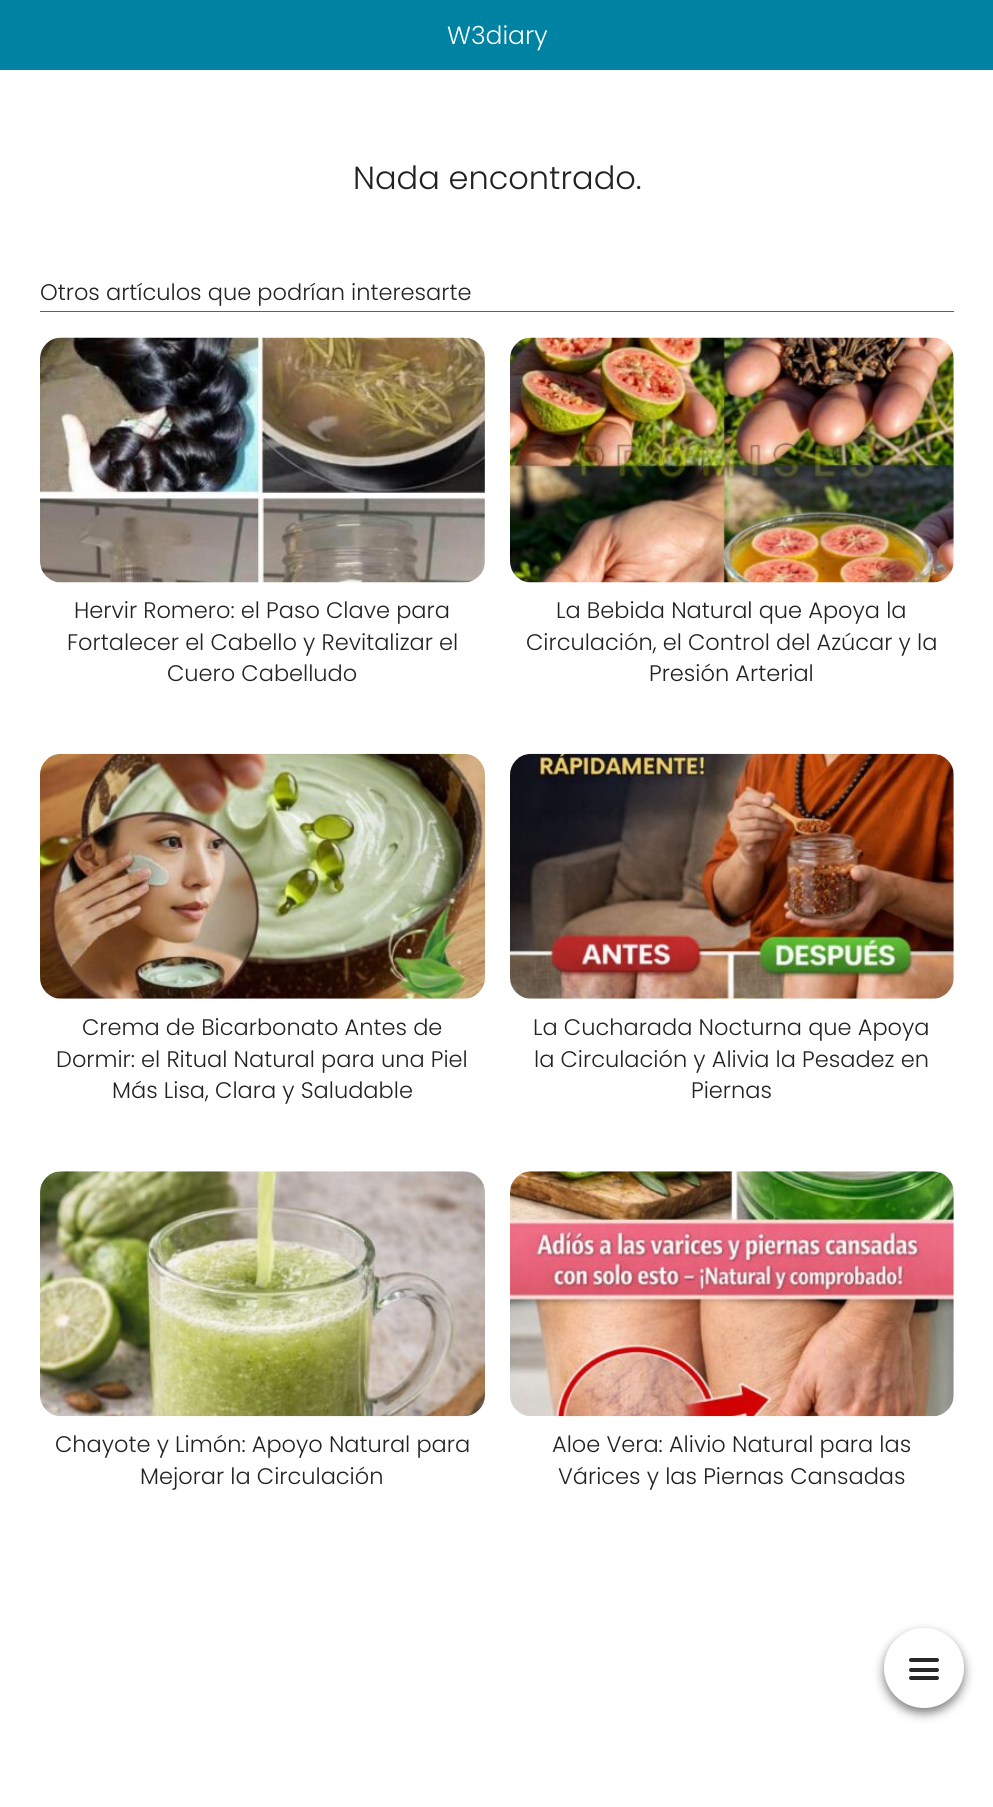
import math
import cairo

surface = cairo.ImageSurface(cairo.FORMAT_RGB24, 993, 1807)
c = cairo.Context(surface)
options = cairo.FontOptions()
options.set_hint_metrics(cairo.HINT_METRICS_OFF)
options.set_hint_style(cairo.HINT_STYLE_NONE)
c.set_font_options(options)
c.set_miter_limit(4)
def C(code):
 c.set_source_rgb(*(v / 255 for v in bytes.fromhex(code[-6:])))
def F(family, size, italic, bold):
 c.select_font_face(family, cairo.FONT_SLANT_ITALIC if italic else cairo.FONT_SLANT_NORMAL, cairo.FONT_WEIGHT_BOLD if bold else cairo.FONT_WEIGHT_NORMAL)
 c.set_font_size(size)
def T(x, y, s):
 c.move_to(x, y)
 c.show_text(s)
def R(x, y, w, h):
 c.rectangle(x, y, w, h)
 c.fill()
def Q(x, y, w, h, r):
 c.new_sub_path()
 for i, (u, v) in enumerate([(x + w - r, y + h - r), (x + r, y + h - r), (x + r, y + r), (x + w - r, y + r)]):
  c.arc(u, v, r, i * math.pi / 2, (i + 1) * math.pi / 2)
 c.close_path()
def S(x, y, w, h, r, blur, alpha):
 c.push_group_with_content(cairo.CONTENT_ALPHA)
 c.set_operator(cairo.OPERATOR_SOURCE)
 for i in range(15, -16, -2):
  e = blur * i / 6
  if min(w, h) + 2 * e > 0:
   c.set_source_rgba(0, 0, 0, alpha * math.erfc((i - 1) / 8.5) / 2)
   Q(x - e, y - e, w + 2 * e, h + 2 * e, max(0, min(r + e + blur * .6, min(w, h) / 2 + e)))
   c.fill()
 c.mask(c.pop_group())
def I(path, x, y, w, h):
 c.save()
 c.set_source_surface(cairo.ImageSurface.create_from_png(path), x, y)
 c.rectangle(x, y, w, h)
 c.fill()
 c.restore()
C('ffffff')
c.paint()
C('0082a3')
R(0,0,993,70)
F('Poppins Light',25,0,0)
C('ffffff')
T(447,44,'W3diary')
C('000000')
S(884,1633,80,80,40,5,.5)
C('ffffff')
c.arc(924,1668,40,0,2 * math.pi)
c.fill()
C('282828')
Q(909,1658,30,4,2)
c.fill()
Q(909,1668,30,4,2)
c.fill()
Q(909,1676,30,4,2)
c.fill()
F('Poppins Light',32,0,0)
C('222222')
T(353,189,'Nada encontrado.')
C('2471a3')
R(40,311,914,1)
F('Poppins Light',22.5,0,0)
C('222222')
T(40,300,'Otros artículos que podrían interesarte')
I('1.png',40,337,445,246)
T(74,618,'Hervir Romero: el Paso Clave para')
T(67,650,'Fortalecer el Cabello y Revitalizar el')
T(167,681,'Cuero Cabelludo')
I('2.png',510,337,444,246)
T(556,618,'La Bebida Natural que Apoya la')
T(526,650,'Circulación, el Control del Azúcar y la')
T(649,681,'Presión Arterial')
I('3.png',40,753,445,246)
T(82,1035,'Crema de Bicarbonato Antes de')
T(56,1067,'Dormir: el Ritual Natural para una Piel')
T(112,1098,'Más Lisa, Clara y Saludable')
I('4.png',510,753,444,246)
T(533,1035,'La Cucharada Nocturna que Apoya')
T(534,1067,'la Circulación y Alivia la Pesadez en')
T(691,1098,'Piernas')
I('5.png',40,1171,445,246)
T(55,1452,'Chayote y Limón: Apoyo Natural para')
T(140,1484,'Mejorar la Circulación')
I('6.png',510,1171,444,246)
T(552,1452,'Aloe Vera: Alivio Natural para las')
T(558,1484,'Várices y las Piernas Cansadas')
surface.write_to_png('o.png')
